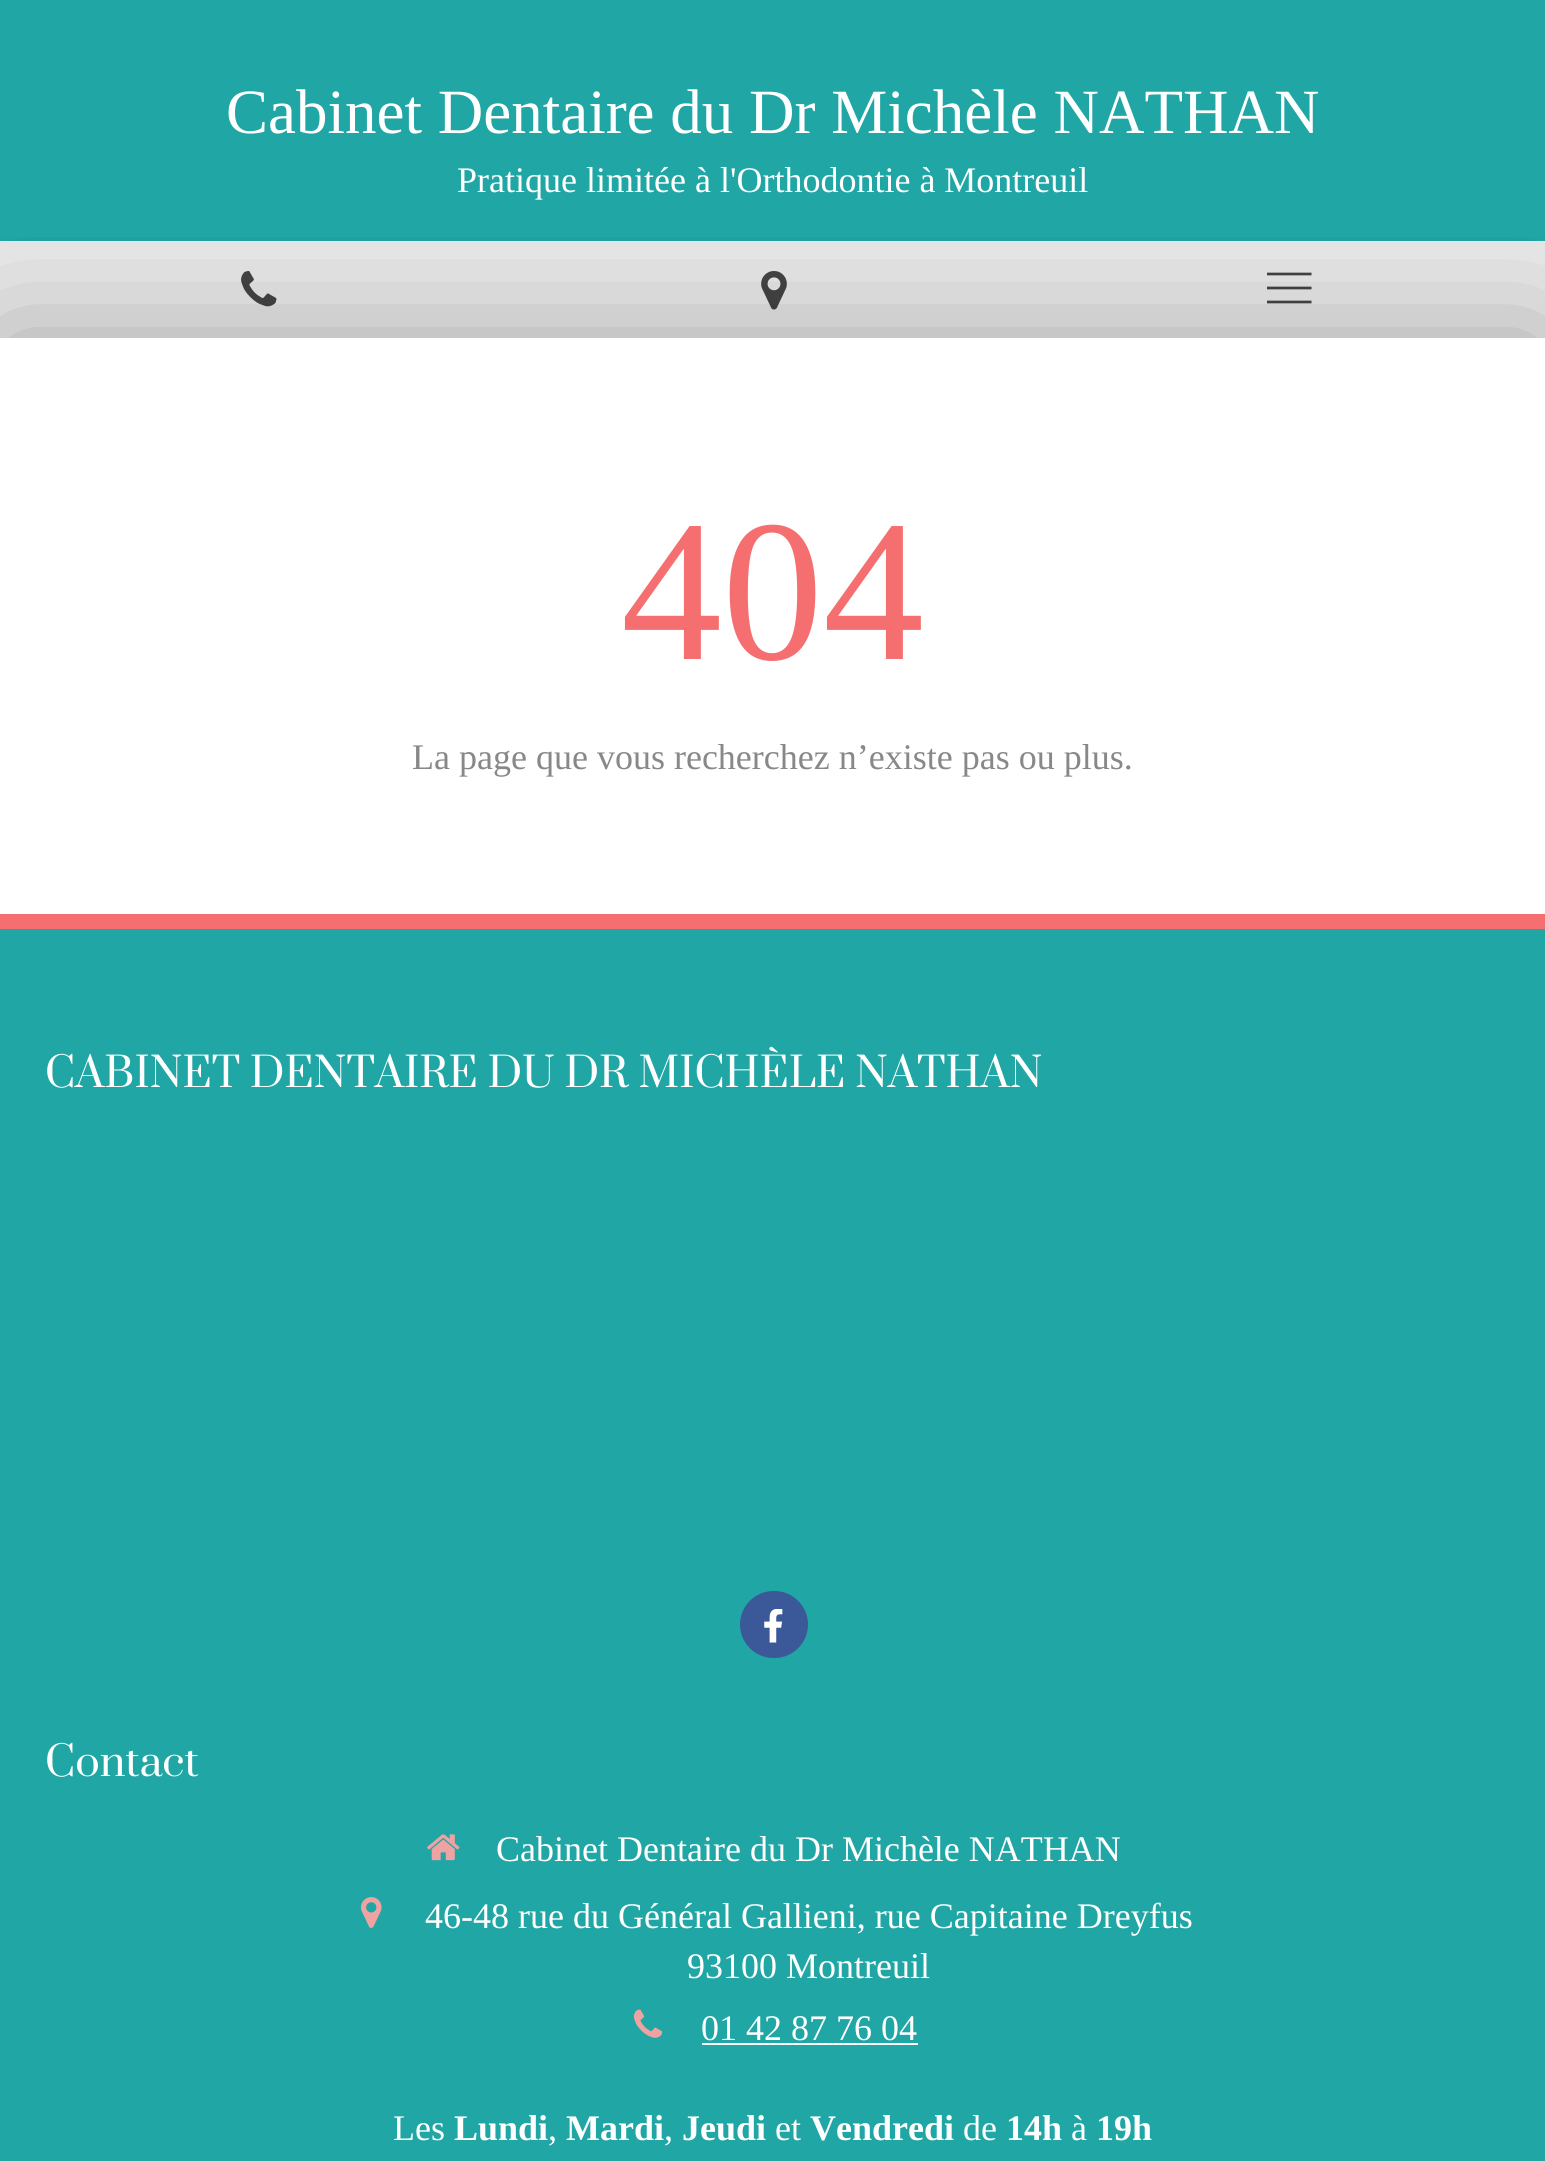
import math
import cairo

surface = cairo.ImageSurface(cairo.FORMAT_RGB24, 1545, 2161)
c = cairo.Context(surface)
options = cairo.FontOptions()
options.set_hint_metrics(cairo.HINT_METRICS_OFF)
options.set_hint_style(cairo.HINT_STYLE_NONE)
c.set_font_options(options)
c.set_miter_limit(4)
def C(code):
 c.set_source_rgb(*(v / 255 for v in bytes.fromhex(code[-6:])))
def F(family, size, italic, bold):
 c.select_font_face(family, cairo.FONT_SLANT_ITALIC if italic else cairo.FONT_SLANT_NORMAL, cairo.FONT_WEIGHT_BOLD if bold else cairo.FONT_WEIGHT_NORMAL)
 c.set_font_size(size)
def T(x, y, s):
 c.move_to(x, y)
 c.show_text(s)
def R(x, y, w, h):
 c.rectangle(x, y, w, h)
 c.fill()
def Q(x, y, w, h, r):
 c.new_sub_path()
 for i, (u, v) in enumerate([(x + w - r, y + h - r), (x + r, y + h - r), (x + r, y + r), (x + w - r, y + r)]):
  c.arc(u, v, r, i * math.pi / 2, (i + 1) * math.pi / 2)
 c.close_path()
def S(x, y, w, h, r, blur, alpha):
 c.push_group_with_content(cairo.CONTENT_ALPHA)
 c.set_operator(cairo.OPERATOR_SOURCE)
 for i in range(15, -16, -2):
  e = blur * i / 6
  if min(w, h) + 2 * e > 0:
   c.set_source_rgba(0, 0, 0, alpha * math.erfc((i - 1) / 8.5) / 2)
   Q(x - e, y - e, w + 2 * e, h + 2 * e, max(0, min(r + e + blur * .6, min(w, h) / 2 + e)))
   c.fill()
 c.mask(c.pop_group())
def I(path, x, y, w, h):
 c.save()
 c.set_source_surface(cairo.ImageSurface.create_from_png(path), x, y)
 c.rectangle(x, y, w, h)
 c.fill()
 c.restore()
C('ffffff')
c.paint()
C('21a6a6')
R(0,0,1545,241)
F('Liberation Serif',63,0,0)
C('ffffff')
T(226,133,'Cabinet Dentaire du Dr Michèle NATHAN')
F('Liberation Serif',36,0,0)
T(457,192,'Pratique limitée à l\'Orthodontie à Montreuil')
C('eaeaea')
R(0,241,1545,97)
I('1.png',241,271,36,36)
I('2.png',761,271,26,39)
c.new_path()
c.move_to(1267,288)
c.line_to(1311.5,288)
c.move_to(1267,274)
c.line_to(1311.5,274)
c.move_to(1267,302)
c.line_to(1311.5,302)
C('444444')
c.set_line_width(2.7)
c.stroke()
c.save()
c.rectangle(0,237,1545,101)
c.clip()
C('000000')
S(0,338,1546,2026,0,67.5,.3)
c.restore()
F('Liberation Serif',202,0,0)
C('f56f70')
T(621,659,'404')
F('Liberation Serif',36,0,0)
C('888888')
T(412,769,'La page que vous recherchez n’existe pas ou plus.')
C('21a6a6')
R(0,929,1545,1232)
C('f56f70')
R(0,914,1545,15)
F('Prata',40.5,0,0)
C('ffffff')
T(45,1087,'CABINET DENTAIRE DU DR MICHÈLE NATHAN')
C('3b5998')
Q(740,1591,68,67,33.5)
c.fill()
I('3.png',764,1609,19,34)
C('ffffff')
T(45,1776,'Contact')
I('4.png',427,1834,33,27)
F('Liberation Serif',36,0,0)
T(496,1861,'Cabinet Dentaire du Dr Michèle NATHAN')
I('5.png',361,1897,21,31)
T(425,1928,'46-48 rue du Général Gallieni, rue Capitaine Dreyfus')
T(687,1978,'93100 Montreuil')
I('6.png',633,2009,30,29)
T(701,2040,'01 42 87 76 04')
R(702,2043,216,2)
T(393,2140,'Les')
F('Liberation Serif',36,0,1)
T(454,2140,'Lundi')
F('Liberation Serif',36,0,0)
T(548,2140,',')
F('Liberation Serif',36,0,1)
T(566,2140,'Mardi')
F('Liberation Serif',36,0,0)
T(664,2140,',')
F('Liberation Serif',36,0,1)
T(682,2140,'Jeudi')
F('Liberation Serif',36,0,0)
T(775,2140,'et')
F('Liberation Serif',36,0,1)
T(810,2140,'Vendredi')
F('Liberation Serif',36,0,0)
T(963,2140,'de')
F('Liberation Serif',36,0,1)
T(1006,2140,'14h')
F('Liberation Serif',36,0,0)
T(1071,2140,'à')
F('Liberation Serif',36,0,1)
T(1096,2140,'19h')
surface.write_to_png('o.png')
